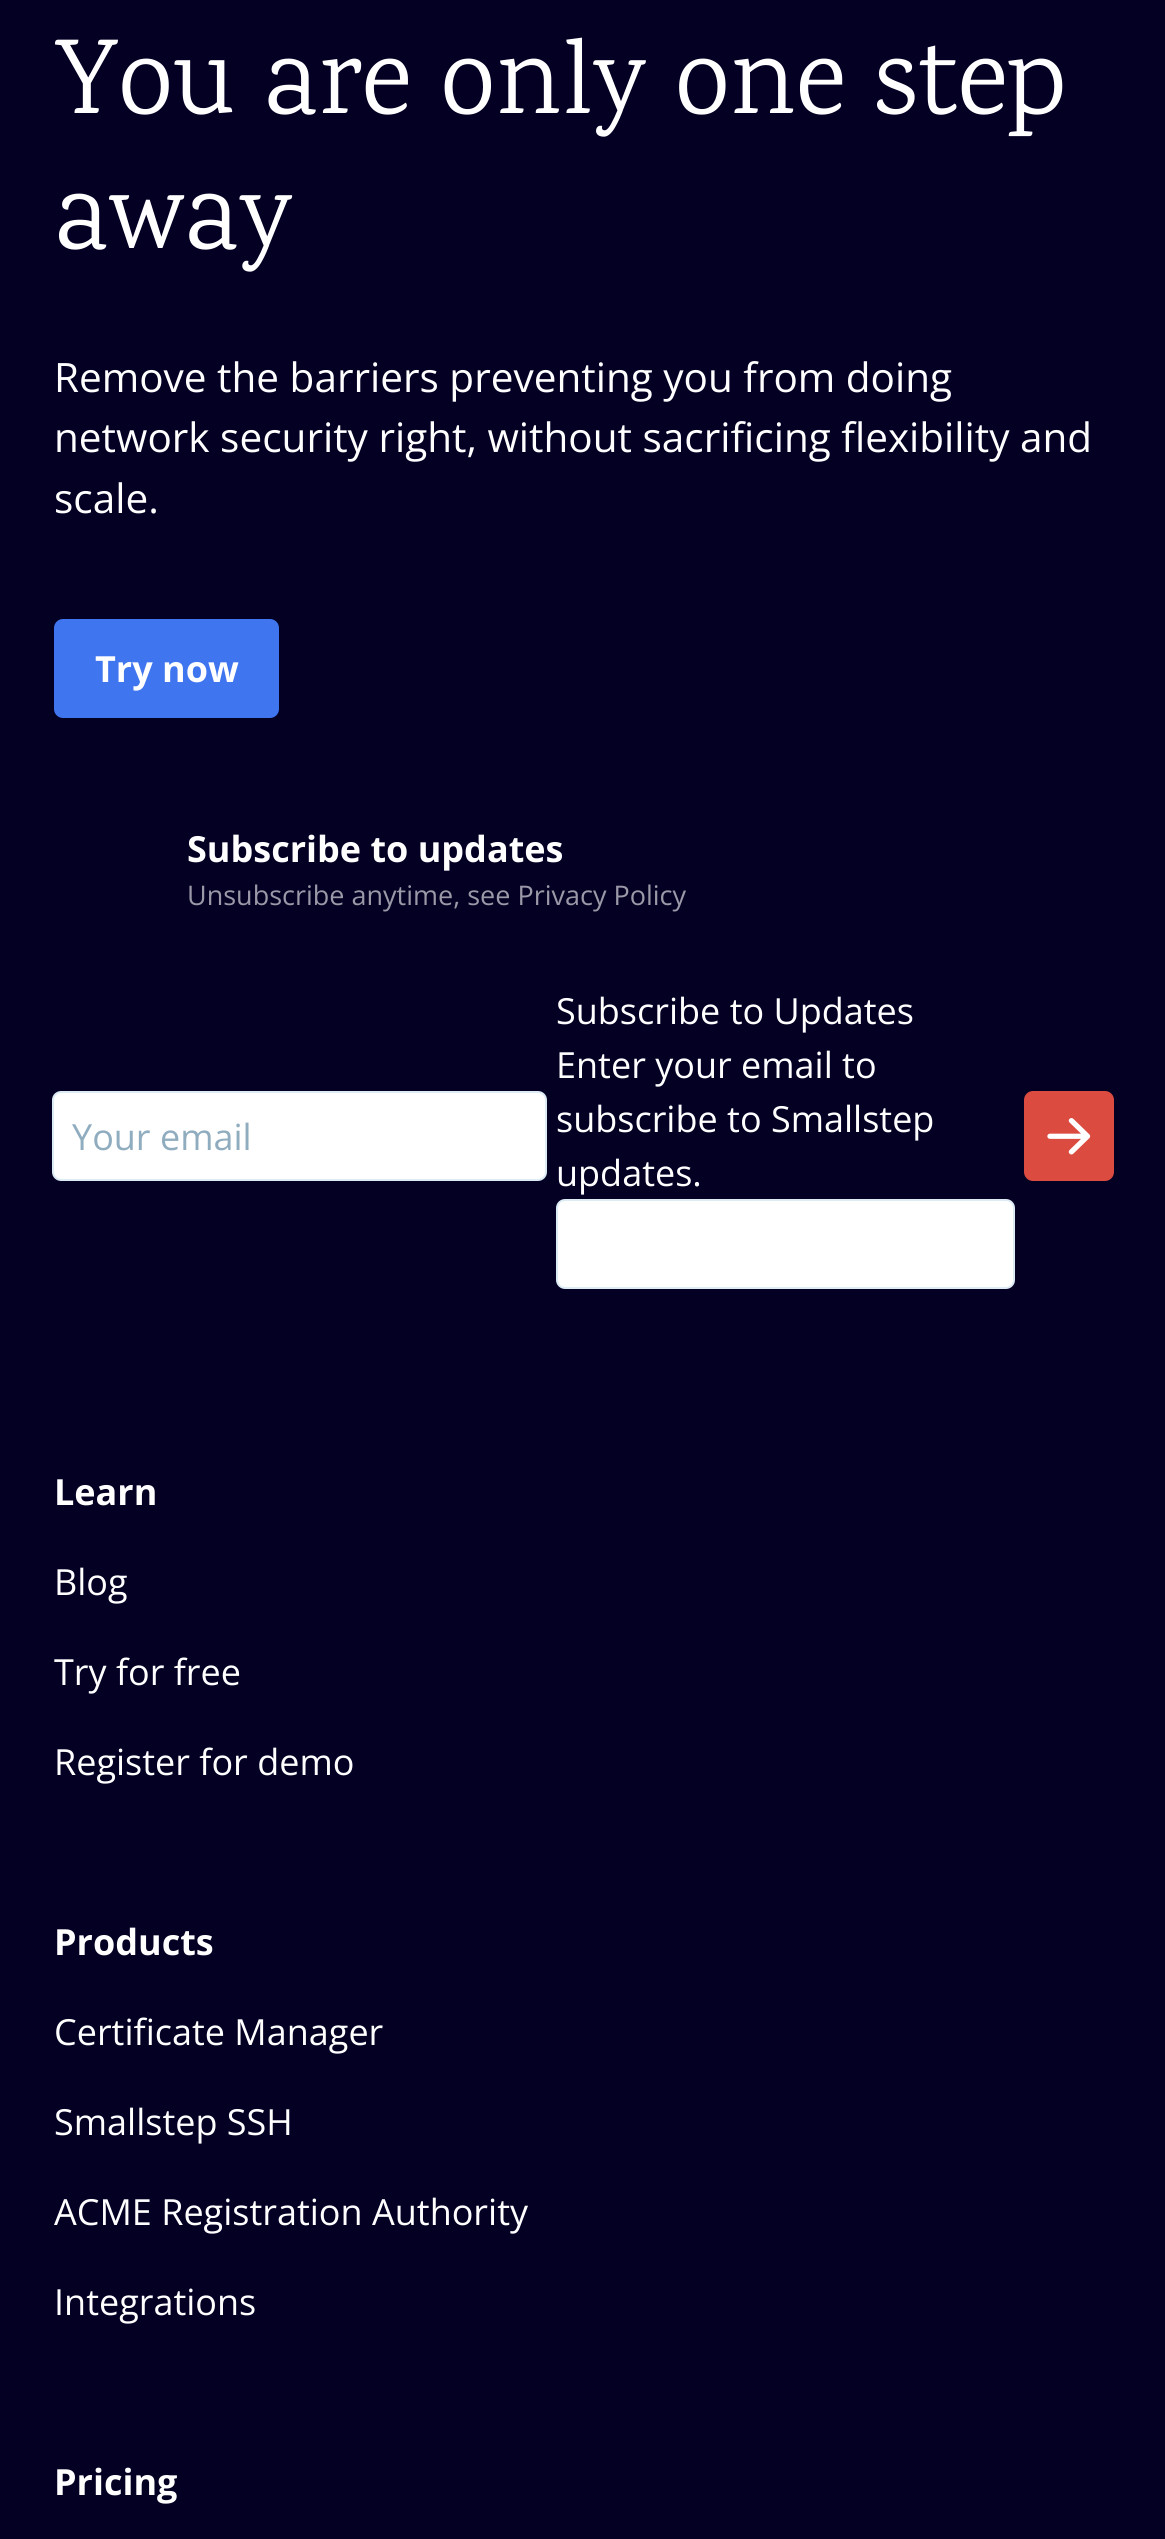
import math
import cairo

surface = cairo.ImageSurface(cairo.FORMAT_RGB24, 1165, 2539)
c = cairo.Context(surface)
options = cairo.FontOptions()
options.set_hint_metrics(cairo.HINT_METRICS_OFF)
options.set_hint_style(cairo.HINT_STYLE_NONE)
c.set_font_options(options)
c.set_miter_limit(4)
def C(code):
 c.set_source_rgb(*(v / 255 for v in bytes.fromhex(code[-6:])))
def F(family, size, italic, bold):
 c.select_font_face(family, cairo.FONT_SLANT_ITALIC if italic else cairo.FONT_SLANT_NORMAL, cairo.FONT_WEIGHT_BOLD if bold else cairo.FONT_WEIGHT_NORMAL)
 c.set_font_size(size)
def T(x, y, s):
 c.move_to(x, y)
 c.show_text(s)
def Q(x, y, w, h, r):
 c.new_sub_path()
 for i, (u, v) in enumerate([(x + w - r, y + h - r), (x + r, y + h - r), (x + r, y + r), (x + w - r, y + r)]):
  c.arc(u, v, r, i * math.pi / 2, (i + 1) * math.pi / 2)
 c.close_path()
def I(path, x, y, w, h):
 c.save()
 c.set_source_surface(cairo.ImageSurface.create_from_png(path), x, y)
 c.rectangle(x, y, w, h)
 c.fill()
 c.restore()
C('040024')
c.paint()
F('Karma',108,0,0)
C('ffffff')
T(54,113,'You are only one step')
T(54,248,'away')
F('Open Sans',40.5,0,0)
T(54,392,'Remove the barriers preventing you from doing')
T(54,452,'network security right, without sacrificing flexibility and')
T(54,513,'scale.')
C('3f75ef')
Q(56.5,621.5,220,94,6.5)
c.fill_preserve()
c.set_line_width(5)
c.stroke()
F('Open Sans',36,0,1)
C('ffffff')
T(95,682,'Try now')
T(187,862,'Subscribe to updates')
F('Open Sans',27,0,0)
C('9b99a7')
T(187,905,'Unsubscribe anytime, see Privacy Policy')
C('ffffff')
Q(53,1092,493,88,8)
c.fill_preserve()
C('ddebf5')
c.set_line_width(2)
c.stroke()
F('Open Sans',36,0,0)
C('90acbf')
T(72,1150,'Your email')
C('ffffff')
T(556,1024,'Subscribe to Updates')
T(556,1078,'Enter your email to')
T(556,1132,'subscribe to Smallstep')
T(556,1186,'updates.')
Q(557,1200,457,88,8)
c.fill_preserve()
C('ddebf5')
c.stroke()
C('dc4b40')
Q(1024,1091,90,90,9)
c.fill()
I('1.png',1047,1118,44,37)
F('Open Sans',36,0,1)
C('ffffff')
T(54,1505,'Learn')
F('Open Sans',36,0,0)
T(54,1595,'Blog')
T(54,1685,'Try for free')
T(54,1775,'Register for demo')
F('Open Sans',36,0,1)
T(54,1955,'Products')
F('Open Sans',36,0,0)
T(54,2045,'Certificate Manager')
T(54,2135,'Smallstep SSH')
T(54,2225,'ACME Registration Authority')
T(54,2315,'Integrations')
F('Open Sans',36,0,1)
T(54,2495,'Pricing')
surface.write_to_png('o.png')
